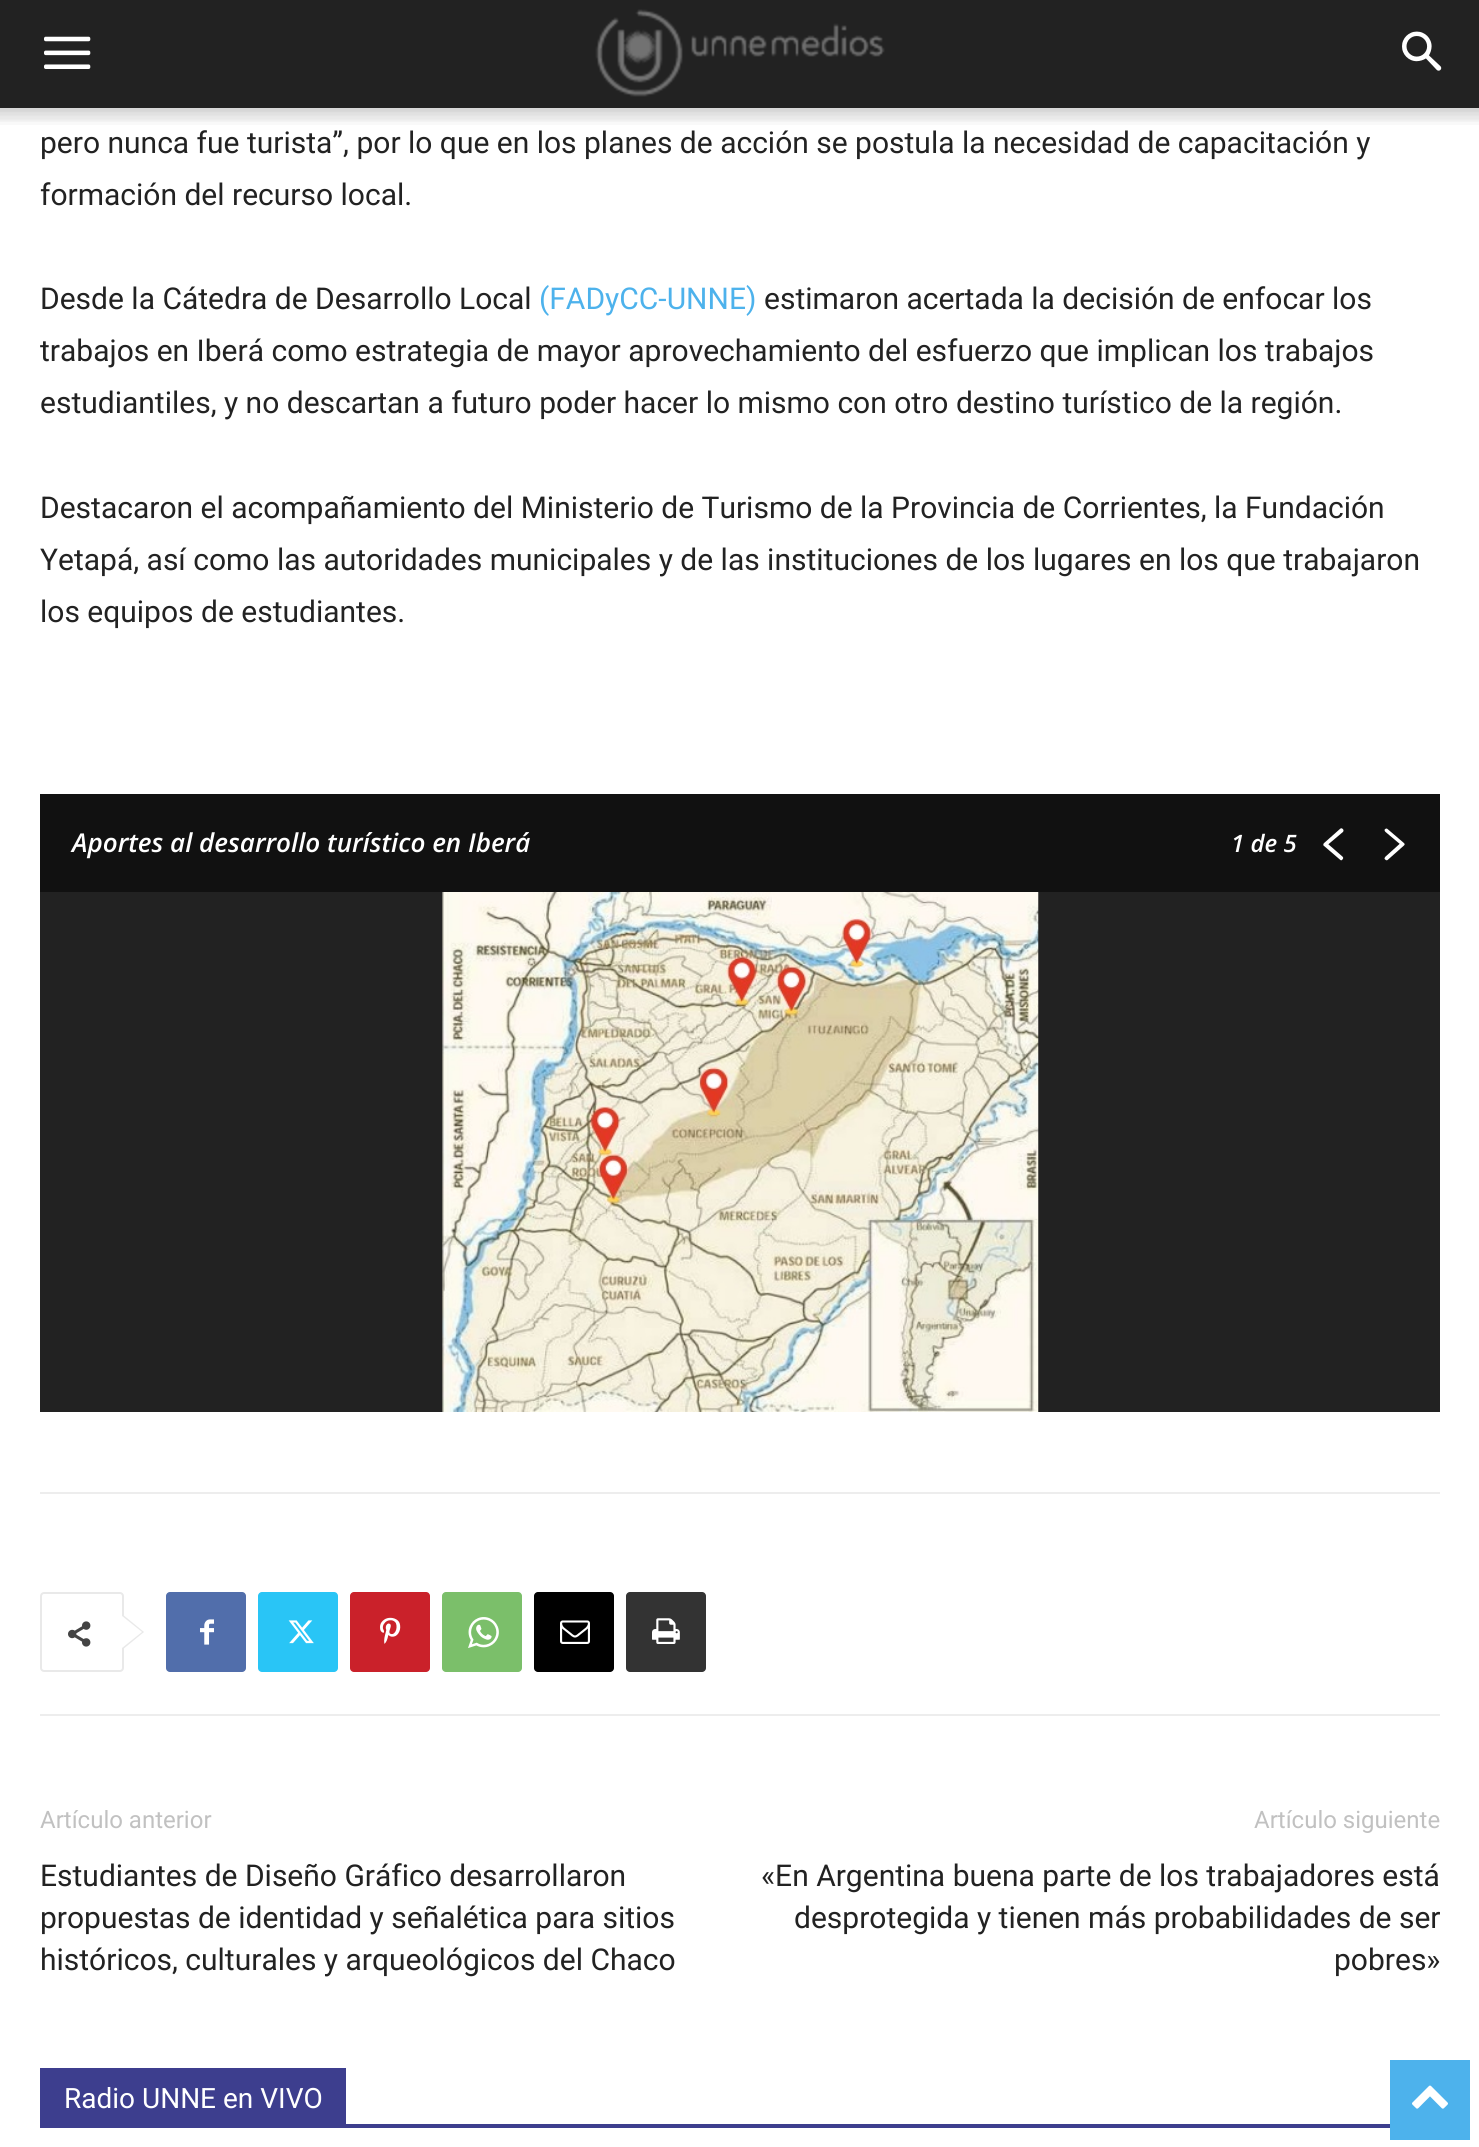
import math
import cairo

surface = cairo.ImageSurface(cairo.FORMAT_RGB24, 1479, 2147)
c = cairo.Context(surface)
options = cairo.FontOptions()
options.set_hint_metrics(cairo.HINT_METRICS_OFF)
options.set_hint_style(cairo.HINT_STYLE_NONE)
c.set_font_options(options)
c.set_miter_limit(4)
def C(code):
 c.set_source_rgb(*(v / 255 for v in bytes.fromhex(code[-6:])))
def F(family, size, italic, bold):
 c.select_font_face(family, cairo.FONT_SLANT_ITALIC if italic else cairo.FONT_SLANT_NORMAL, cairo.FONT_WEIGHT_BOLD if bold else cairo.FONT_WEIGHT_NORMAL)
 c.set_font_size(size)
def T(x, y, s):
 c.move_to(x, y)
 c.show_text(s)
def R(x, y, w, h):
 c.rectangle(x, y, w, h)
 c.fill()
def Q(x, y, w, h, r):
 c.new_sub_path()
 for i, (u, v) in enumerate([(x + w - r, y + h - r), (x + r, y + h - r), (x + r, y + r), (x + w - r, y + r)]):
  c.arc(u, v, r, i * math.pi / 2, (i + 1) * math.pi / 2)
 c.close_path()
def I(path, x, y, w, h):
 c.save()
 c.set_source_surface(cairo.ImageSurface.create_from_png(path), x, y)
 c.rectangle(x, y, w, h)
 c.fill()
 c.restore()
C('ffffff')
c.paint()
C('222222')
R(0,0,1479,108)
I('1.png',44,36,47,33)
I('2.png',595,9,290,88)
I('3.png',1402,31,40,40)
I('4.png',0,108,1479,17)
I('5.png',0,108,1479,14)
F('Roboto',30,0,0)
T(40,153,'pero nunca fue turista”, por lo que en los planes de acción se postula la necesidad de capacitación y')
T(40,205,'formación del recurso local.')
T(40,309,'Desde la Cátedra de Desarrollo Local')
C('4db2ec')
T(539,309,'(FADyCC-UNNE)')
C('222222')
T(764,309,'estimaron acertada la decisión de enfocar los')
T(40,361,'trabajos en Iberá como estrategia de mayor aprovechamiento del esfuerzo que implican los trabajos')
T(40,413,'estudiantiles, y no descartan a futuro poder hacer lo mismo con otro destino turístico de la región.')
T(40,518,'Destacaron el acompañamiento del Ministerio de Turismo de la Provincia de Corrientes, la Fundación')
T(40,570,'Yetapá, así como las autoridades municipales y de las instituciones de los lugares en los que trabajaron')
T(40,622,'los equipos de estudiantes.')
R(40,892,1400,520)
C('111111')
R(40,794,1400,98)
F('Open Sans SemiBold',26,1,0)
C('ffffff')
T(72,852,'Aportes al desarrollo turístico en Iberá')
F('Open Sans SemiBold',24,1,0)
T(1231,852,'1 de 5')
I('6.png',1323,828,21,33)
I('7.png',1384,828,21,33)
I('8.png',442,892,597,520)
C('ededed')
R(40,1492,1400,2)
R(40,1714,1400,2)
Q(41,1593,82,78,3)
C('e9e9e9')
c.stroke()
c.new_path()
c.move_to(122,1650)
c.line_to(122,1614)
c.line_to(144,1632)
c.close_path()
c.fill()
I('9.png',68,1621,23,26)
C('ffffff')
c.new_path()
c.move_to(122,1648)
c.line_to(122,1616)
c.line_to(142,1632)
c.close_path()
c.fill()
C('516eab')
Q(166,1592,80,80,4)
c.fill()
I('10.png',200,1619,14,26)
C('29c5f6')
Q(258,1592,80,80,4)
c.fill()
I('11.png',288,1620,26,24)
C('ca212a')
Q(350,1592,80,80,4)
c.fill()
I('12.png',380,1617,21,27)
C('7bbf6a')
Q(442,1592,80,80,4)
c.fill()
I('13.png',468,1617,31,31)
C('000000')
Q(534,1592,80,80,4)
c.fill()
I('14.png',560,1620,30,24)
C('333333')
Q(626,1592,80,80,4)
c.fill()
I('15.png',652,1618,28,26)
F('Roboto',24,0,0)
C('c1c1c1')
T(40,1828,'Artículo anterior')
F('Roboto',30,0,0)
C('222222')
T(40,1886,'Estudiantes de Diseño Gráfico desarrollaron')
T(40,1928,'propuestas de identidad y señalética para sitios')
T(40,1970,'históricos, culturales y arqueológicos del Chaco')
F('Roboto',24,0,0)
C('c1c1c1')
T(1254,1828,'Artículo siguiente')
F('Roboto',30,0,0)
C('222222')
T(761,1886,'«En Argentina buena parte de los trabajadores está')
T(794,1928,'desprotegida y tienen más probabilidades de ser')
T(1334,1970,'pobres»')
C('3d3e8e')
R(40,2124,1350,4)
R(40,2068,306,56)
F('Roboto',28,0,0)
C('ffffff')
T(64,2108,'Radio UNNE en VIVO')
C('4db2ec')
R(1390,2060,80,80)
I('16.png',1412,2085,36,24)
surface.write_to_png('o.png')
